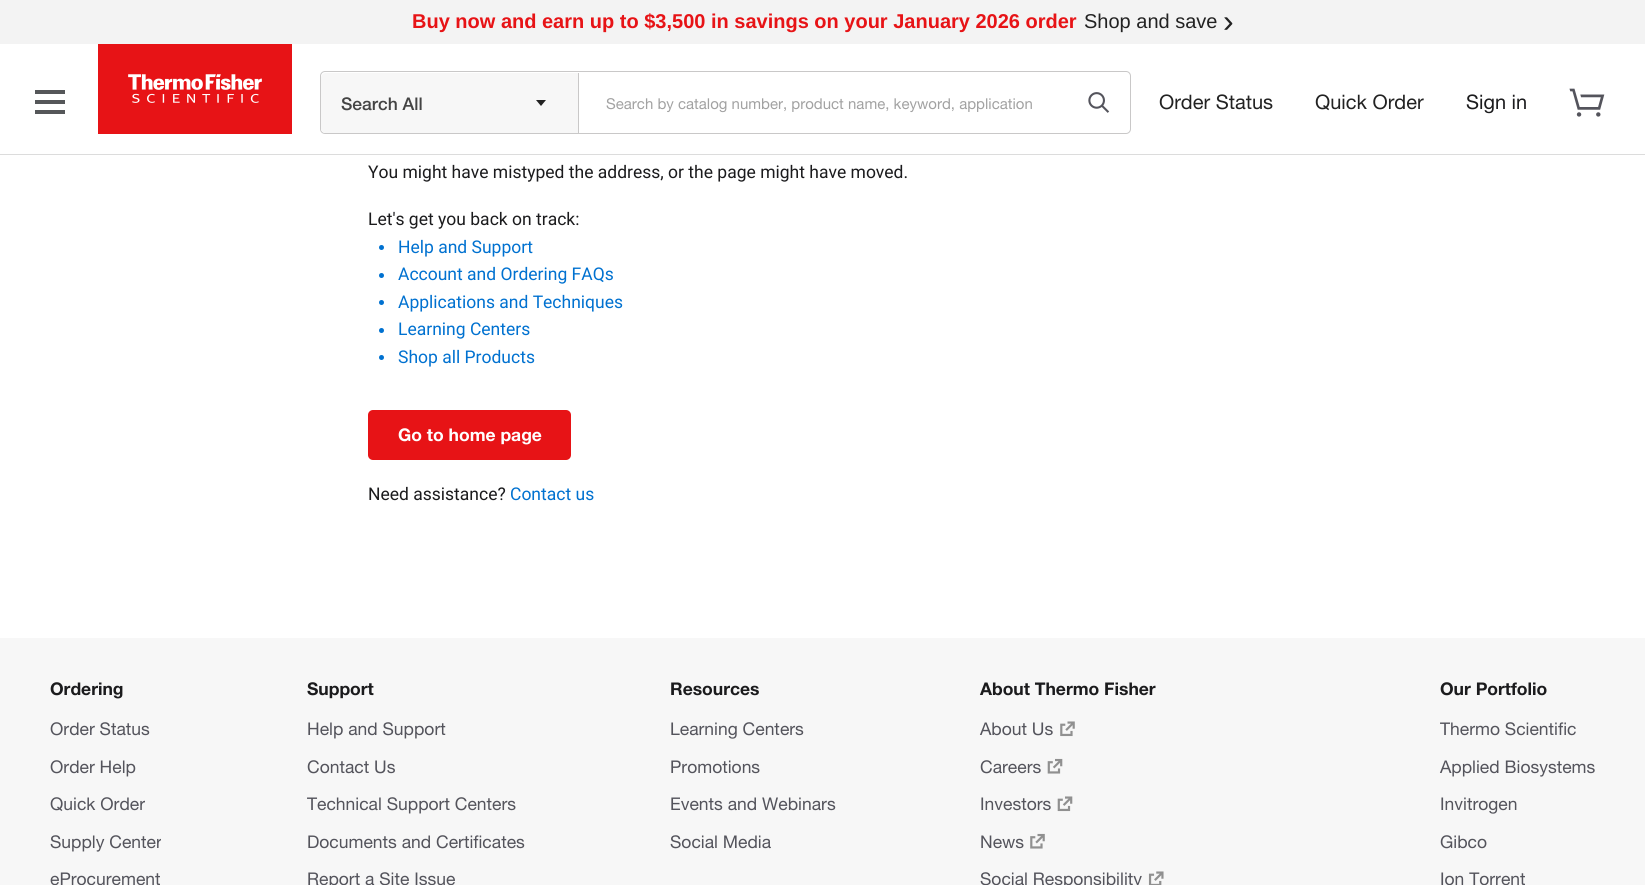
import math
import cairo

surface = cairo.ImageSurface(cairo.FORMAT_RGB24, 1645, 885)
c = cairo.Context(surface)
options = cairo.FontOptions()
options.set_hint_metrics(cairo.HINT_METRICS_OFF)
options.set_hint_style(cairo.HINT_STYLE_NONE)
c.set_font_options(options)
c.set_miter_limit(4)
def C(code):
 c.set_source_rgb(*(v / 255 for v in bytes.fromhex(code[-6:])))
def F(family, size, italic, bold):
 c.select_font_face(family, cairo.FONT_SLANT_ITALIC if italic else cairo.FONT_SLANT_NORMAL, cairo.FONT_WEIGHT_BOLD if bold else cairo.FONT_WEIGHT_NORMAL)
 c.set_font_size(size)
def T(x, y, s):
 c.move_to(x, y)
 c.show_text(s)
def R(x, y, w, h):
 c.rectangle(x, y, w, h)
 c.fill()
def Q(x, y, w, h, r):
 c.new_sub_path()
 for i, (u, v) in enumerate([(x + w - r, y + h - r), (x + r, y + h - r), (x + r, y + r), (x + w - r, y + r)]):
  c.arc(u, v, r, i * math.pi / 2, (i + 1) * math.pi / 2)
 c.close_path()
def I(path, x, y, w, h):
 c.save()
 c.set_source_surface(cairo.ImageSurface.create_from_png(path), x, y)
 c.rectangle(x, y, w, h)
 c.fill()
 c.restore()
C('ffffff')
c.paint()
C('dcdcdc')
R(0,154,1645,1)
C('f3f3f3')
R(0,0,1645,44)
F('Liberation Sans',20,0,1)
C('e71316')
T(412,28,'Buy now and earn up to $3,500 in savings on your January 2026 order')
F('Liberation Sans',20,0,0)
C('222222')
T(1084,28,'Shop and save')
F('Liberation Sans',32,0,0)
T(1223,32,'›')
C('555759')
R(35,100,30,4)
R(35,90,30,4)
R(35,110,30,4)
I('1.png',98,44,194,90)
Q(320.5,71.5,810,62,4.5)
C('c9c8c8')
c.set_line_width(1)
c.stroke()
C('f7f7f7')
c.new_path()
c.move_to(326,73)
c.line_to(578,73)
c.line_to(578,133)
c.line_to(326,133)
c.curve_to(323,133,321,131,321,128)
c.line_to(321,78)
c.curve_to(321,75,323,73,326,73)
c.close_path()
c.fill()
C('c9c8c8')
R(578,73,1,60)
F('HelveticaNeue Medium',17.5,0,0)
C('444444')
T(341,110,'Search All')
C('222222')
c.new_path()
c.move_to(536,100)
c.line_to(546,100)
c.line_to(541,106)
c.close_path()
c.fill()
F('HelveticaNeue',15,0,0)
C('a2a2a2')
T(606,109,'Search by catalog number, product name, keyword, application')
I('2.png',1088,92,22,21)
F('HelveticaNeue',20,0,0)
C('222222')
T(1159,109,'Order Status')
T(1315,109,'Quick Order')
C('1b1b1d')
T(1466,109,'Sign in')
I('3.png',1569,88,36,29)
F('Roboto',17.5,0,0)
T(368,178,'You might have mistyped the address, or the page might have moved.')
T(368,225,'Let\'s get you back on track:')
C('0071d0')
c.new_path()
c.arc(381.5,247.5,2.5,0,2 * math.pi)
c.fill()
T(398,253,'Help and Support')
c.new_path()
c.arc(381.5,275.5,2.5,0,2 * math.pi)
c.fill()
T(398,280,'Account and Ordering FAQs')
c.new_path()
c.arc(381.5,302.5,2.5,0,2 * math.pi)
c.fill()
T(398,308,'Applications and Techniques')
c.new_path()
c.arc(381.5,330.5,2.5,0,2 * math.pi)
c.fill()
T(398,335,'Learning Centers')
c.new_path()
c.arc(381.5,357.5,2.5,0,2 * math.pi)
c.fill()
T(398,363,'Shop all Products')
C('e71316')
Q(368,410,203,50,5)
c.fill()
F('HelveticaNeue',17.5,0,1)
C('ffffff')
T(398,441,'Go to home page')
F('Roboto',17.5,0,0)
C('1b1b1d')
T(368,500,'Need assistance?')
C('0071d0')
T(510,500,'Contact us')
C('f7f7f7')
R(0,638,1645,247)
F('HelveticaNeue',17.5,0,1)
C('1b1b1d')
T(50,695,'Ordering')
F('HelveticaNeue',17.5,0,0)
C('54545c')
T(50,735,'Order Status')
T(50,773,'Order Help')
T(50,810,'Quick Order')
c.save()
c.rectangle(50,714,111,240)
c.clip()
T(50,848,'Supply Center')
c.restore()
T(50,885,'eProcurement')
F('HelveticaNeue',17.5,0,1)
C('1b1b1d')
T(307,695,'Support')
F('HelveticaNeue',17.5,0,0)
C('54545c')
T(307,735,'Help and Support')
T(307,773,'Contact Us')
T(307,810,'Technical Support Centers')
T(307,848,'Documents and Certificates')
T(307,885,'Report a Site Issue')
F('HelveticaNeue',17.5,0,1)
C('1b1b1d')
T(670,695,'Resources')
F('HelveticaNeue',17.5,0,0)
C('54545c')
T(670,735,'Learning Centers')
T(670,773,'Promotions')
T(670,810,'Events and Webinars')
T(670,848,'Social Media')
F('HelveticaNeue',17.5,0,1)
C('1b1b1d')
T(980,695,'About Thermo Fisher')
F('HelveticaNeue',17.5,0,0)
C('54545c')
T(980,735,'About Us')
I('4.png',1060,721,15,16)
T(980,773,'Careers')
I('5.png',1047,758,16,16)
T(980,810,'Investors')
I('6.png',1057,796,16,16)
T(980,848,'News')
I('7.png',1030,833,15,16)
T(980,885,'Social Responsibility')
I('8.png',1148,871,16,14)
F('HelveticaNeue',17.5,0,1)
C('1b1b1d')
T(1440,695,'Our Portfolio')
F('HelveticaNeue',17.5,0,0)
C('54545c')
T(1440,735,'Thermo Scientific')
T(1440,773,'Applied Biosystems')
T(1440,810,'Invitrogen')
T(1440,848,'Gibco')
T(1440,885,'Ion Torrent')
surface.write_to_png('o.png')
